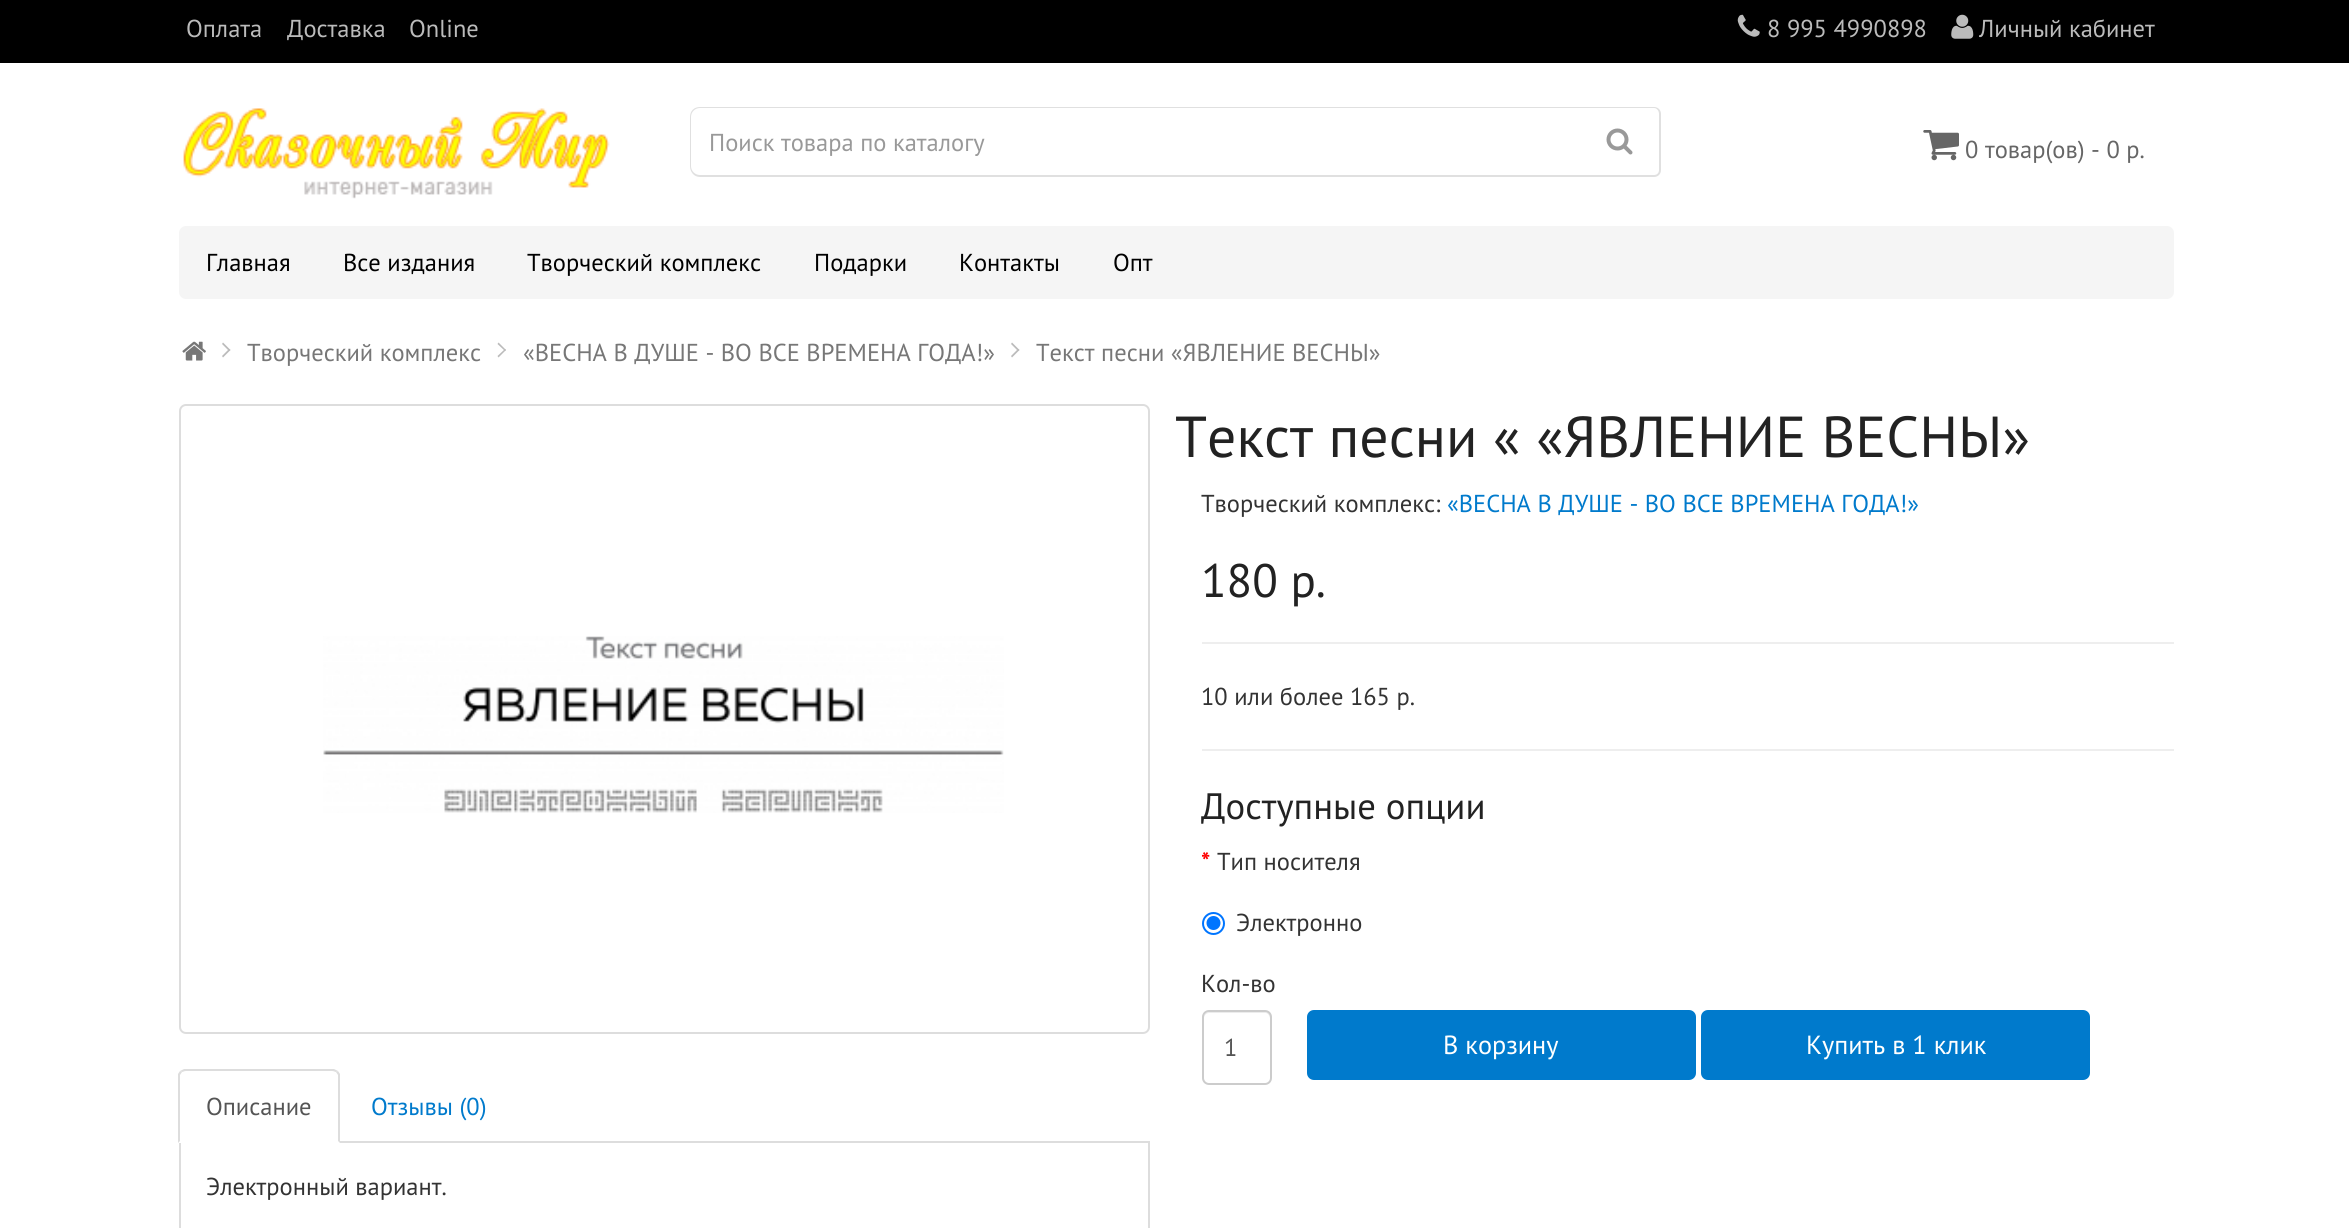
import math
import cairo

surface = cairo.ImageSurface(cairo.FORMAT_RGB24, 2349, 1228)
c = cairo.Context(surface)
options = cairo.FontOptions()
options.set_hint_metrics(cairo.HINT_METRICS_OFF)
options.set_hint_style(cairo.HINT_STYLE_NONE)
c.set_font_options(options)
c.set_miter_limit(4)
def C(code):
 c.set_source_rgb(*(v / 255 for v in bytes.fromhex(code[-6:])))
def F(family, size, italic, bold):
 c.select_font_face(family, cairo.FONT_SLANT_ITALIC if italic else cairo.FONT_SLANT_NORMAL, cairo.FONT_WEIGHT_BOLD if bold else cairo.FONT_WEIGHT_NORMAL)
 c.set_font_size(size)
def T(x, y, s):
 c.move_to(x, y)
 c.show_text(s)
def R(x, y, w, h):
 c.rectangle(x, y, w, h)
 c.fill()
def Q(x, y, w, h, r):
 c.new_sub_path()
 for i, (u, v) in enumerate([(x + w - r, y + h - r), (x + r, y + h - r), (x + r, y + r), (x + w - r, y + r)]):
  c.arc(u, v, r, i * math.pi / 2, (i + 1) * math.pi / 2)
 c.close_path()
def I(path, x, y, w, h):
 c.save()
 c.set_source_surface(cairo.ImageSurface.create_from_png(path), x, y)
 c.rectangle(x, y, w, h)
 c.fill()
 c.restore()
C('ffffff')
c.paint()
C('000000')
R(0,0,2349,63)
F('PT Sans',24.5,0,0)
C('bbbbbb')
T(186,37,'Оплата')
T(287,37,'Доставка')
T(409,37,'Online')
I('1.png',1737,14,23,23)
T(1767,37,'8 995 4990898')
I('2.png',1951,14,23,25)
T(1979,37,'Личный кабинет')
I('3.png',183,108,427,91)
C('e0e0e0')
c.set_fill_rule(cairo.FILL_RULE_EVEN_ODD)
c.new_path()
c.move_to(700,107)
c.line_to(1582,107)
c.line_to(1582,177)
c.line_to(700,177)
c.curve_to(694,177,690,172,690,166)
c.line_to(690,117)
c.curve_to(690,111,694,107,700,107)
c.close_path()
c.move_to(700,108)
c.line_to(1582,108)
c.line_to(1582,175)
c.line_to(700,175)
c.curve_to(695,175,691,171,691,166)
c.line_to(691,117)
c.curve_to(691,112,695,108,700,108)
c.close_path()
c.fill()
C('999999')
T(709,151,'Поиск товара по каталогу')
C('e0e0e0')
c.new_path()
c.move_to(1580,107)
c.line_to(1654,107)
c.curve_to(1658,107,1661,110,1661,114)
c.line_to(1661,170)
c.curve_to(1661,174,1658,177,1654,177)
c.line_to(1580,177)
c.close_path()
c.move_to(1580,108)
c.line_to(1654,108)
c.curve_to(1657,108,1659,111,1659,114)
c.line_to(1659,170)
c.curve_to(1659,173,1657,175,1654,175)
c.line_to(1580,175)
c.close_path()
c.fill()
I('4.png',1606,128,27,27)
I('5.png',1923,130,36,31)
C('666666')
T(1965,158,'0 товар(ов) - 0 р.')
C('f5f5f5')
Q(179,226,1995,73,7)
c.fill()
C('000000')
T(206,271,'Главная')
T(343,271,'Все издания')
T(527,271,'Творческий комплекс')
T(814,271,'Подарки')
T(959,271,'Контакты')
T(1113,271,'Опт')
I('6.png',182,341,24,20)
C('bbbbbb')
c.set_fill_rule(cairo.FILL_RULE_WINDING)
c.new_path()
c.move_to(222,344)
c.line_to(223,342.5)
c.line_to(230.5,350)
c.line_to(229,351)
c.close_path()
c.fill()
c.new_path()
c.move_to(222,356)
c.line_to(229,349)
c.line_to(230.5,350)
c.line_to(223,357.5)
c.close_path()
c.fill()
C('777777')
T(247,361,'Творческий комплекс')
C('bbbbbb')
c.new_path()
c.move_to(497.5,344)
c.line_to(498.5,342.5)
c.line_to(506,350)
c.line_to(505,351)
c.close_path()
c.fill()
c.new_path()
c.move_to(497.5,356)
c.line_to(505,349)
c.line_to(506,350)
c.line_to(498.5,357.5)
c.close_path()
c.fill()
C('777777')
T(523,361,'«ВЕСНА В ДУШЕ - ВО ВСЕ ВРЕМЕНА ГОДА!»')
C('bbbbbb')
c.new_path()
c.move_to(1011,344)
c.line_to(1012,342.5)
c.line_to(1019.5,350)
c.line_to(1018,351)
c.close_path()
c.fill()
c.new_path()
c.move_to(1011,356)
c.line_to(1018,349)
c.line_to(1019.5,350)
c.line_to(1012,357.5)
c.close_path()
c.fill()
C('777777')
T(1036,361,'Текст песни «ЯВЛЕНИЕ ВЕСНЫ»')
F('PT Sans',57.75,0,0)
C('222222')
T(1175,457,'Текст песни « «ЯВЛЕНИЕ ВЕСНЫ»')
F('PT Sans',24.5,0,0)
C('333333')
T(1201,512,'Творческий комплекс:')
C('007acc')
T(1447,512,'«ВЕСНА В ДУШЕ - ВО ВСЕ ВРЕМЕНА ГОДА!»')
F('PT Sans',47,0,0)
C('222222')
T(1201,597,'180 р.')
C('eeeeee')
R(1202,642,972,2)
F('PT Sans',24.5,0,0)
C('333333')
T(1201,705,'10 или более 165 р.')
C('eeeeee')
R(1202,749,972,2)
F('PT Sans',36.75,0,0)
C('222222')
T(1201,819,'Доступные опции')
F('PT Sans',24.5,0,1)
C('ff0000')
T(1201,870,'*')
F('PT Sans',24.5,0,0)
C('333333')
T(1217,870,'Тип носителя')
c.new_path()
c.arc(1213.5,923.5,10.5,0,2 * math.pi)
C('0075ff')
c.stroke()
c.arc(1213.5,923,7,0,2 * math.pi)
c.fill()
C('333333')
T(1236,931,'Электронно')
T(1201,992,'Кол-во')
C('ececec')
c.new_path()
c.move_to(1209,1013)
c.line_to(1266,1013)
c.curve_to(1272,1015,1270,1025,1270,1028)
c.line_to(1270,1081)
c.curve_to(1271,1080,1271,1079,1271,1078)
c.line_to(1271,1017)
c.curve_to(1271,1014,1269,1012,1266,1012)
c.line_to(1209,1012)
c.curve_to(1206,1012,1204,1014,1204,1017)
c.line_to(1204,1018)
c.curve_to(1204,1016,1206,1013,1209,1013)
c.close_path()
c.fill()
Q(1203,1011,68,73,6)
C('cccccc')
c.stroke()
C('555555')
T(1224,1056,'1')
C('007acc')
Q(1307,1010,389,70,7)
c.fill()
F('PT Sans',26.25,0,0)
C('ffffff')
T(1443,1054,'В корзину')
C('007acc')
Q(1701,1010,389,70,7)
c.fill()
C('ffffff')
T(1806,1054,'Купить в 1 клик')
Q(180,405,969,628,6)
C('dddddd')
c.stroke()
I('7.png',323,636,681,177)
R(340,1141,810,2)
c.new_path()
c.move_to(186,1071)
c.curve_to(184,1071,183,1072,182,1072)
c.line_to(180,1071)
c.line_to(184,1069)
c.line_to(334,1069)
c.line_to(338,1071)
c.line_to(336,1072)
c.curve_to(335,1072,334,1071,332,1071)
c.close_path()
c.fill()
c.new_path()
c.move_to(338,1071)
c.line_to(340,1074)
c.line_to(340,1143)
c.line_to(338,1141)
c.line_to(338,1075)
c.line_to(336,1072)
c.close_path()
c.fill()
c.new_path()
c.move_to(178,1143)
c.line_to(178,1074)
c.line_to(180,1071)
c.line_to(182,1072)
c.line_to(180,1075)
c.line_to(180,1141)
c.close_path()
c.fill()
F('PT Sans',24.5,0,0)
C('555555')
T(206,1115,'Описание')
C('007acc')
T(371,1115,'Отзывы (0)')
C('dddddd')
R(1148,1143,2,85)
R(179,1143,2,85)
C('333333')
T(206,1195,'Электронный вариант.')
surface.write_to_png('o.png')
